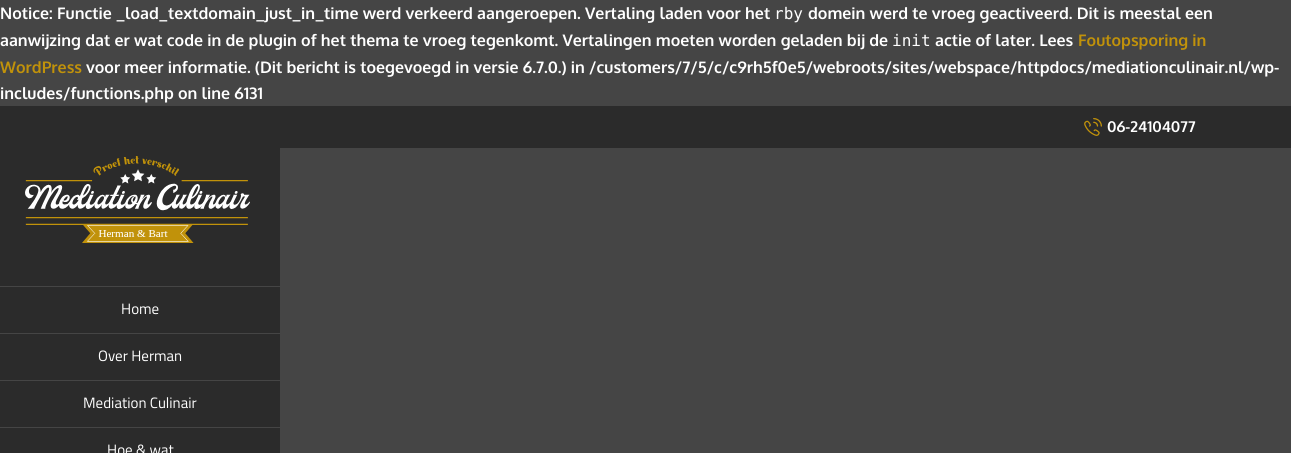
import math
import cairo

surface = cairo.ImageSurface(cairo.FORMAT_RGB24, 1291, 453)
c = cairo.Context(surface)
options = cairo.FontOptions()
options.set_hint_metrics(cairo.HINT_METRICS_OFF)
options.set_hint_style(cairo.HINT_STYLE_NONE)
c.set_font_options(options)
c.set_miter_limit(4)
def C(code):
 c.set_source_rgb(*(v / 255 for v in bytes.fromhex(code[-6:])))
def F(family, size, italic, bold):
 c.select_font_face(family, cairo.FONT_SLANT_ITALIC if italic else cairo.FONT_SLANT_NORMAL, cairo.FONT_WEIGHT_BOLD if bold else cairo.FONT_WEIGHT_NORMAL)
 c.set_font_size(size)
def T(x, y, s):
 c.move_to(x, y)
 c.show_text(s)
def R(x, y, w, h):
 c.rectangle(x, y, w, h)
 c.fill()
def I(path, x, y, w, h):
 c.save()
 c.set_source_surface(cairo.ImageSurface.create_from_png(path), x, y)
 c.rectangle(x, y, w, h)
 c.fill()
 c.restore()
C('454545')
c.paint()
F('Oxygen',16,0,1)
C('ffffff')
T(0,19,'Notice: Functie _load_textdomain_just_in_time werd verkeerd aangeroepen. Vertaling laden voor het')
F('DejaVu Sans Mono',16,0,0)
T(774,19,'rby')
F('Oxygen',16,0,1)
T(808,19,'domein werd te vroeg geactiveerd. Dit is meestal een')
T(0,46,'aanwijzing dat er wat code in de plugin of het thema te vroeg tegenkomt. Vertalingen moeten worden geladen bij de')
F('DejaVu Sans Mono',16,0,0)
T(892,46,'init')
F('Oxygen',16,0,1)
T(935,46,'actie of later. Lees')
C('c1920a')
T(1078,46,'Foutopsporing in')
T(0,73,'WordPress')
C('ffffff')
T(86,73,'voor meer informatie. (Dit bericht is toegevoegd in versie 6.7.0.) in /customers/7/5/c/c9rh5f0e5/webroots/sites/webspace/httpdocs/mediationculinair.nl/wp-')
T(0,99,'includes/functions.php on line 6131')
C('2b2b2b')
R(0,106,1291,42)
I('1.png',1084,118,18,18)
F('Oxygen',15,0,1)
C('ffffff')
T(1107,132,'06-24104077')
C('2b2b2b')
R(0,148,280,305)
I('2.png',25,156,225,87)
C('454545')
R(0,286,280,1)
R(0,333,280,1)
F('Sunflower Light',15,0,0)
C('ffffff')
T(121,314,'Home')
C('454545')
R(0,380,280,1)
C('ffffff')
T(98,361,'Over Herman')
C('454545')
R(0,427,280,1)
C('ffffff')
T(83,408,'Mediation Culinair')
T(107,455,'Hoe & wat')
surface.write_to_png('o.png')
